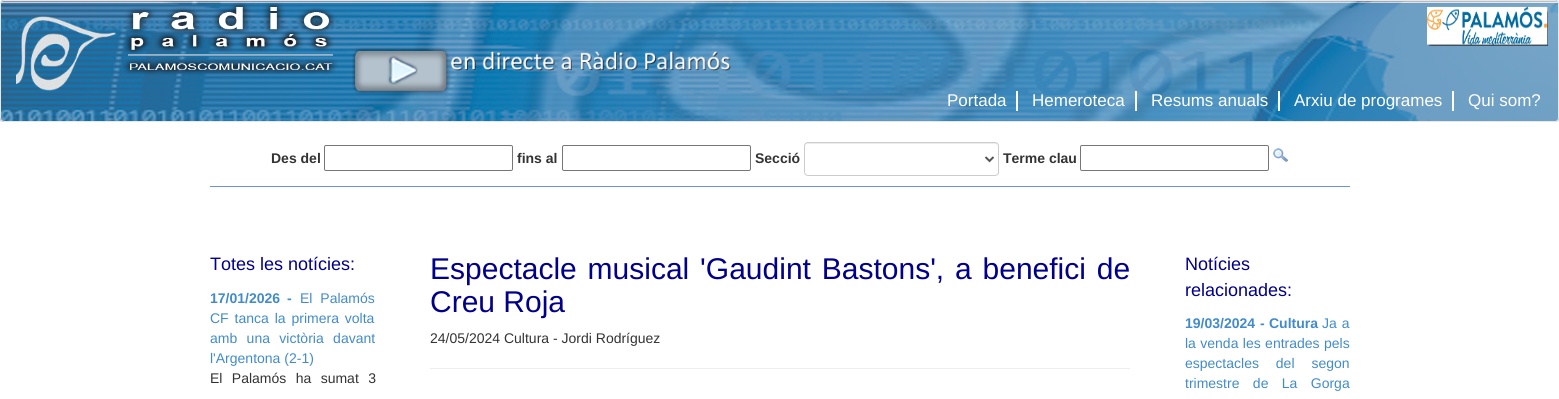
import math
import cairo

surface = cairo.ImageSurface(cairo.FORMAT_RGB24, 1559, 399)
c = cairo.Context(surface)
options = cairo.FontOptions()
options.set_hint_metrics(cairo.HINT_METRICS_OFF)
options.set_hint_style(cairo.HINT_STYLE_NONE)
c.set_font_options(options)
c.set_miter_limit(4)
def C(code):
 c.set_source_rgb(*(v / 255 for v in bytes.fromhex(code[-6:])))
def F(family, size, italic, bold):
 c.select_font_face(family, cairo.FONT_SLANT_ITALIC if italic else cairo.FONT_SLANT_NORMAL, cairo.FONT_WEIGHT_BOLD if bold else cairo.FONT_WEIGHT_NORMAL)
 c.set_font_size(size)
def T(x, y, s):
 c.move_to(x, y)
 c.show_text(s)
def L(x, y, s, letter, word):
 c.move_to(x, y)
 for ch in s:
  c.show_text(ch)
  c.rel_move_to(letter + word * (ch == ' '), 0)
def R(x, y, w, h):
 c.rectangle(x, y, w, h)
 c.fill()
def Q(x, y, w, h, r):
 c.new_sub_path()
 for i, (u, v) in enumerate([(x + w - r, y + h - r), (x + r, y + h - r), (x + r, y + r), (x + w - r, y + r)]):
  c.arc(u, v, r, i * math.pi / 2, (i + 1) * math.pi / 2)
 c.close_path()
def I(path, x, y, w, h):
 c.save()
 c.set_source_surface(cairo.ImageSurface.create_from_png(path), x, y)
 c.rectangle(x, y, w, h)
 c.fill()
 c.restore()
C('ffffff')
c.paint()
I('1.png',0,0,1559,122)
Q(.5,.5,1558,121,3.5)
C('e7e7e7')
c.set_line_width(1)
c.stroke()
I('2.png',16,16,100,75)
I('3.png',122,2,217,73)
I('4.png',352,47,98,48)
I('5.png',451,51,280,20)
I('6.png',1427,6,121,40)
C('ffffff')
R(1016,91,2,20)
F('Liberation Sans',17,0,0)
T(947,106,'Portada')
R(1135,91,2,20)
T(1032,106,'Hemeroteca')
R(1278,91,2,20)
T(1151,106,'Resums anuals')
R(1452,91,2,20)
T(1294,106,'Arxiu de programes')
T(1468,106,'Qui som?')
F('Liberation Sans',14,0,1)
C('333333')
T(271,163,'Des del')
Q(324.5,145.5,188,25,1.5)
C('767676')
c.stroke()
C('333333')
T(517,163,'fins al')
Q(562.5,145.5,188,25,1.5)
C('767676')
c.stroke()
C('333333')
T(755,163,'Secció')
C('ececec')
c.new_path()
c.move_to(808,144)
c.line_to(995,144)
c.curve_to(997,144,998,145,998,147)
c.curve_to(998,145,997,143,995,143)
c.line_to(808,143)
c.curve_to(806,143,805,145,805,147)
c.curve_to(805,145,806,144,808,144)
c.close_path()
c.fill()
Q(804.5,142.5,194,33,3.5)
C('cccccc')
c.stroke()
c.new_path()
c.move_to(985.5,157)
c.line_to(989.5,161)
c.line_to(993.5,157)
C('555555')
c.set_line_width(2)
c.stroke()
C('333333')
T(1003,163,'Terme clau')
Q(1080.5,145.5,188,25,1.5)
C('767676')
c.set_line_width(1)
c.stroke()
I('7.png',1273,148,15,14)
C('6e90e1')
R(210,186,1140,1)
F('Liberation Sans',18,0,0)
C('00008b')
T(210,270,'Totes les notícies:')
F('Liberation Sans',14,0,1)
C('428bca')
T(210,303,'17/01/2026')
T(287,303,'-')
F('Liberation Sans',14,0,0)
L(300,303,'El Palamós',0,4)
L(210,323,'CF tanca la primera volta',0,2)
L(210,343,'amb una victòria davant',0,5.5)
T(210,363,'l\'Argentona (2-1)')
C('333333')
L(210,383,'El Palamós ha sumat 3',0,5.5)
F('Liberation Sans',30,0,0)
C('00008b')
L(430,279,'Espectacle musical \'Gaudint Bastons\', a benefici de',0,2.5)
T(430,312,'Creu Roja')
F('Liberation Sans',14,0,0)
C('333333')
T(430,343,'24/05/2024 Cultura - Jordi Rodríguez')
C('eeeeee')
R(430,368,700,1)
F('Liberation Sans',18,0,0)
C('00008b')
T(1185,270,'Notícies')
T(1185,296,'relacionades:')
F('Liberation Sans',14,0,1)
C('428bca')
L(1185,328,'19/03/2024 -',0,1)
T(1269,328,'Cultura')
F('Liberation Sans',14,0,0)
L(1322,328,'Ja a',0,1)
L(1185,348,'la venda les entrades pels',0,.5)
L(1185,368,'espectacles del segon',0,13)
L(1185,388,'trimestre de La Gorga',0,9.5)
surface.write_to_png('o.png')
